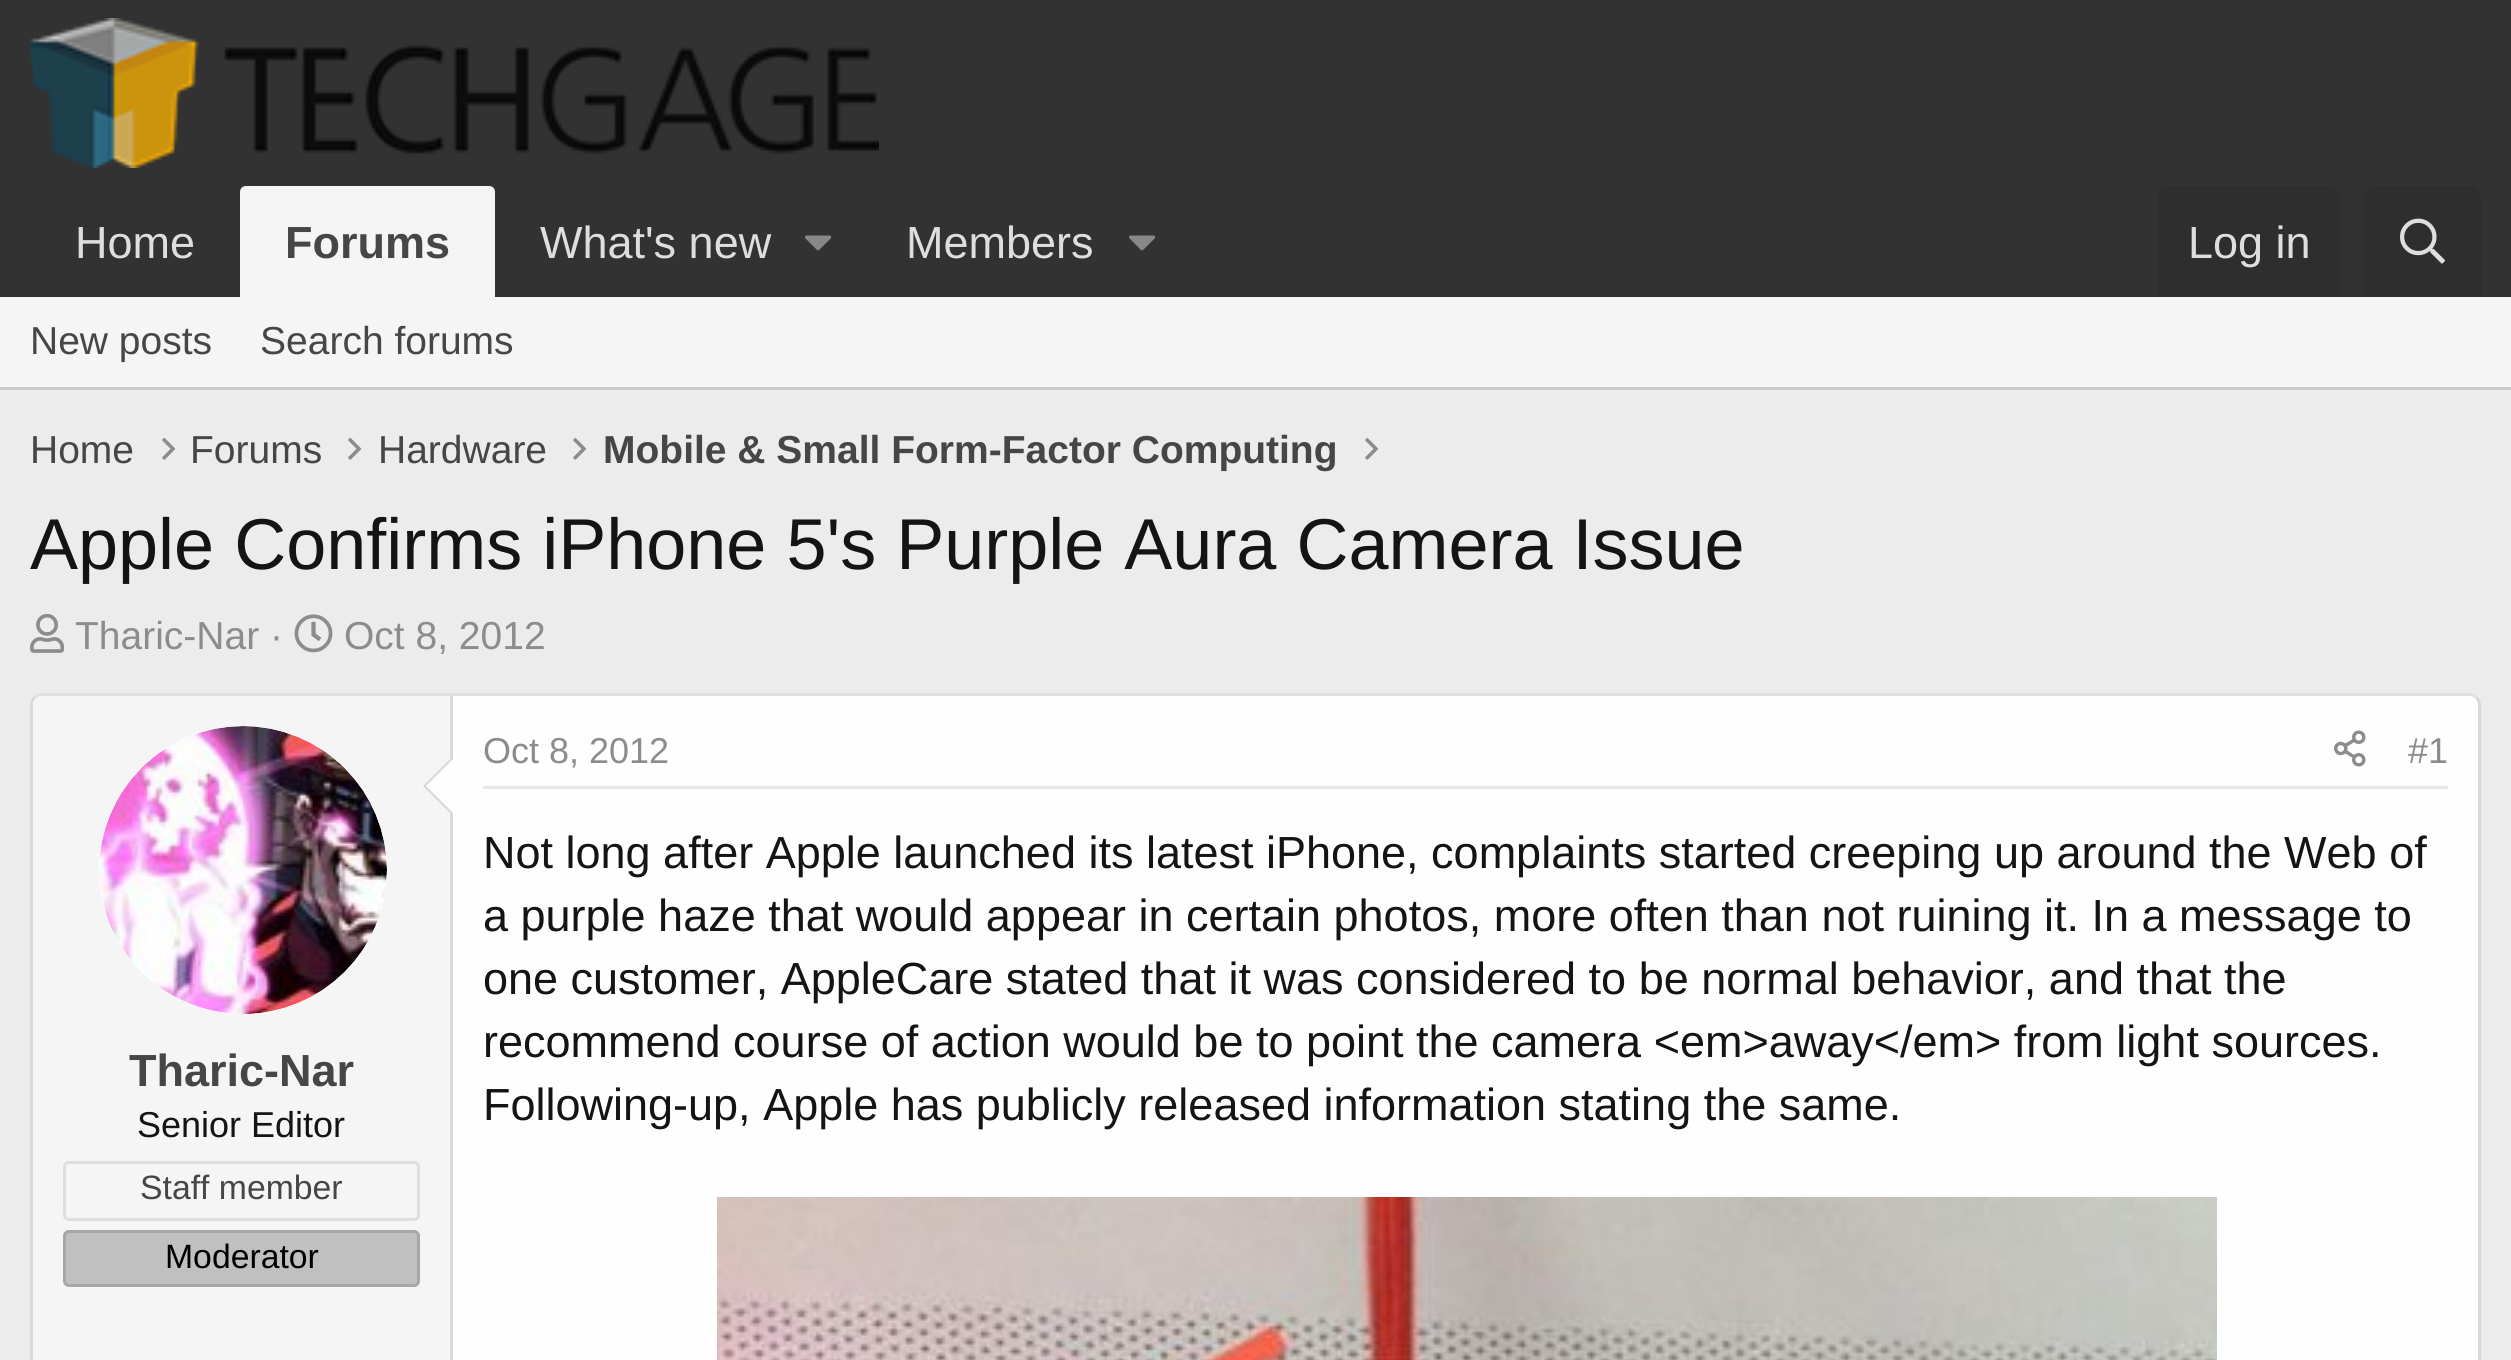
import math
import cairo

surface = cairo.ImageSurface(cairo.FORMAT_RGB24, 2511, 1360)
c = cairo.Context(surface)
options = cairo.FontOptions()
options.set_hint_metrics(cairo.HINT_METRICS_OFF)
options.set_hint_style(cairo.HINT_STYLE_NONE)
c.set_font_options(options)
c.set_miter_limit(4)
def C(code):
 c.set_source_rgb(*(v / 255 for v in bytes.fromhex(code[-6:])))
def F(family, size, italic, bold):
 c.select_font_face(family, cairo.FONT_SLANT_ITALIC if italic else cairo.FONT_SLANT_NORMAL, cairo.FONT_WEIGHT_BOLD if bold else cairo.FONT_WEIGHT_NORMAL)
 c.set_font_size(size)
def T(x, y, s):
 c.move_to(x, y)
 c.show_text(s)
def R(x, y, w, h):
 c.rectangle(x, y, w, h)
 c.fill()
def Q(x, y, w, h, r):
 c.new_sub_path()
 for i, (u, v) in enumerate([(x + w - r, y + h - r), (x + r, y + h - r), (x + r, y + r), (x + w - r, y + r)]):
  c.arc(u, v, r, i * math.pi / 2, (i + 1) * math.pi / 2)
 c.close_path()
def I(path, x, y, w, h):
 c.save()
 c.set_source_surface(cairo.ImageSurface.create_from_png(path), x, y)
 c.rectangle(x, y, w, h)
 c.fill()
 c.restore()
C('ececec')
c.paint()
C('323232')
R(0,0,2511,297)
I('1.png',30,18,849,150)
F('Liberation Sans',45,0,0)
C('dedede')
T(75,258,'Home')
C('f5f5f5')
c.new_path()
c.move_to(246,186)
c.line_to(489,186)
c.curve_to(492.5,186,495,188.5,495,192)
c.line_to(495,297)
c.line_to(240,297)
c.line_to(240,192)
c.curve_to(240,188.5,242.5,186,246,186)
c.close_path()
c.fill()
F('Liberation Sans',45,0,1)
C('464646')
T(285,258,'Forums')
F('Liberation Sans',45,0,0)
C('dedede')
T(540,258,'What\'s new')
I('2.png',805,235,27,16)
T(906,258,'Members')
I('2.png',1129,235,27,16)
C('2e2e2e')
c.new_path()
c.move_to(2169,186)
c.line_to(2328,186)
c.curve_to(2334.5,186,2340,191.5,2340,198)
c.line_to(2340,297)
c.line_to(2157,297)
c.line_to(2157,198)
c.curve_to(2157,191.5,2162.5,186,2169,186)
c.close_path()
c.fill()
C('dedede')
T(2188,258,'Log in')
C('2e2e2e')
c.new_path()
c.move_to(2376,186)
c.line_to(2469,186)
c.curve_to(2475.5,186,2481,191.5,2481,198)
c.line_to(2481,297)
c.line_to(2364,297)
c.line_to(2364,198)
c.curve_to(2364,191.5,2369.5,186,2376,186)
c.close_path()
c.fill()
I('3.png',2400,218,45,46)
C('f5f5f5')
R(0,297,2511,90)
C('cbcbcb')
R(0,387,2511,3)
F('Liberation Sans',39,0,0)
C('464646')
T(30,354,'New posts')
T(260,354,'Search forums')
T(30,463,'Home')
I('4.png',162,437,14,23)
T(190,463,'Forums')
I('4.png',348,437,14,23)
T(378,463,'Hardware')
I('4.png',573,437,14,23)
F('Liberation Sans',39,0,1)
T(603,463,'Mobile & Small Form-Factor Computing')
I('4.png',1365,437,14,23)
F('Liberation Sans',72,0,0)
C('141414')
T(30,569,'Apple Confirms iPhone 5\'s Purple Aura Camera Issue')
I('5.png',30,613,35,40)
F('Liberation Sans',39,0,0)
C('8c8c8c')
T(75,649,'Tharic-Nar ·')
I('6.png',294,614,39,39)
T(344,649,'Oct 8, 2012')
C('fefefe')
Q(30,693,2451,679,12)
c.fill()
c.new_path()
c.move_to(34.5,697.5)
c.curve_to(36.5,695.5,39,694.5,42,694.5)
c.line_to(2469,694.5)
c.curve_to(2472,694.5,2474.5,695.5,2476.5,697.5)
C('dfdfdf')
c.set_line_width(3)
c.stroke()
c.new_path()
c.move_to(2476.5,697.5)
c.curve_to(2478.5,699.5,2479.5,702,2479.5,705)
c.line_to(2479.5,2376)
c.curve_to(2479.5,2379,2478.5,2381.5,2476.5,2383.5)
C('d8d8d8')
c.stroke()
c.new_path()
c.move_to(34.5,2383.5)
c.curve_to(32.5,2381.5,31.5,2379,31.5,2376)
c.line_to(31.5,705)
c.curve_to(31.5,702,32.5,699.5,34.5,697.5)
c.stroke()
C('e7e7e7')
R(483,786,1965,3)
F('Liberation Sans',36,0,0)
C('8c8c8c')
T(483,763,'Oct 8, 2012')
I('7.png',2334,730,32,37)
T(2408,763,'#1')
F('Liberation Sans',45,0,0)
C('141414')
T(483,868,'Not long after Apple launched its latest iPhone, complaints started creeping up around the Web of')
T(483,931,'a purple haze that would appear in certain photos, more often than not ruining it. In a message to')
T(483,994,'one customer, AppleCare stated that it was considered to be normal behavior, and that the')
T(483,1057,'recommend course of action would be to point the camera <em>away</em> from light sources.')
T(483,1120,'Following-up, Apple has publicly released information stating the same.')
I('8.png',717,1197,1500,163)
C('f5f5f5')
c.new_path()
c.move_to(42,696)
c.line_to(453,696)
c.line_to(453,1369)
c.line_to(42,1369)
c.curve_to(37,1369,33,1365,33,1360)
c.line_to(33,705)
c.curve_to(33,700,37,696,42,696)
c.close_path()
c.fill()
C('d8d8d8')
R(450,696,3,664)
C('fefefe')
c.arc(243,870,144,0,2 * math.pi)
c.fill()
I('9.png',99,726,288,288)
C('d8d8d8')
c.new_path()
c.move_to(453,756)
c.line_to(453,816)
c.line_to(423,786)
c.close_path()
c.fill()
C('fefefe')
c.new_path()
c.move_to(453,759)
c.line_to(453,813)
c.line_to(426,786)
c.close_path()
c.fill()
F('Liberation Sans',45,0,1)
C('464646')
T(129,1086,'Tharic-Nar')
F('Liberation Sans',36,0,0)
C('141414')
T(137,1137,'Senior Editor')
Q(64.5,1162.5,354,57,4.5)
C('dedede')
c.stroke()
F('Liberation Sans',33.75,0,0)
C('464646')
T(140,1199,'Staff member')
C('c0c0c0')
Q(64.5,1231.5,354,54,4.5)
c.fill_preserve()
C('a7a7a7')
c.stroke()
C('000000')
T(165,1268,'Moderator')
surface.write_to_png('o.png')
